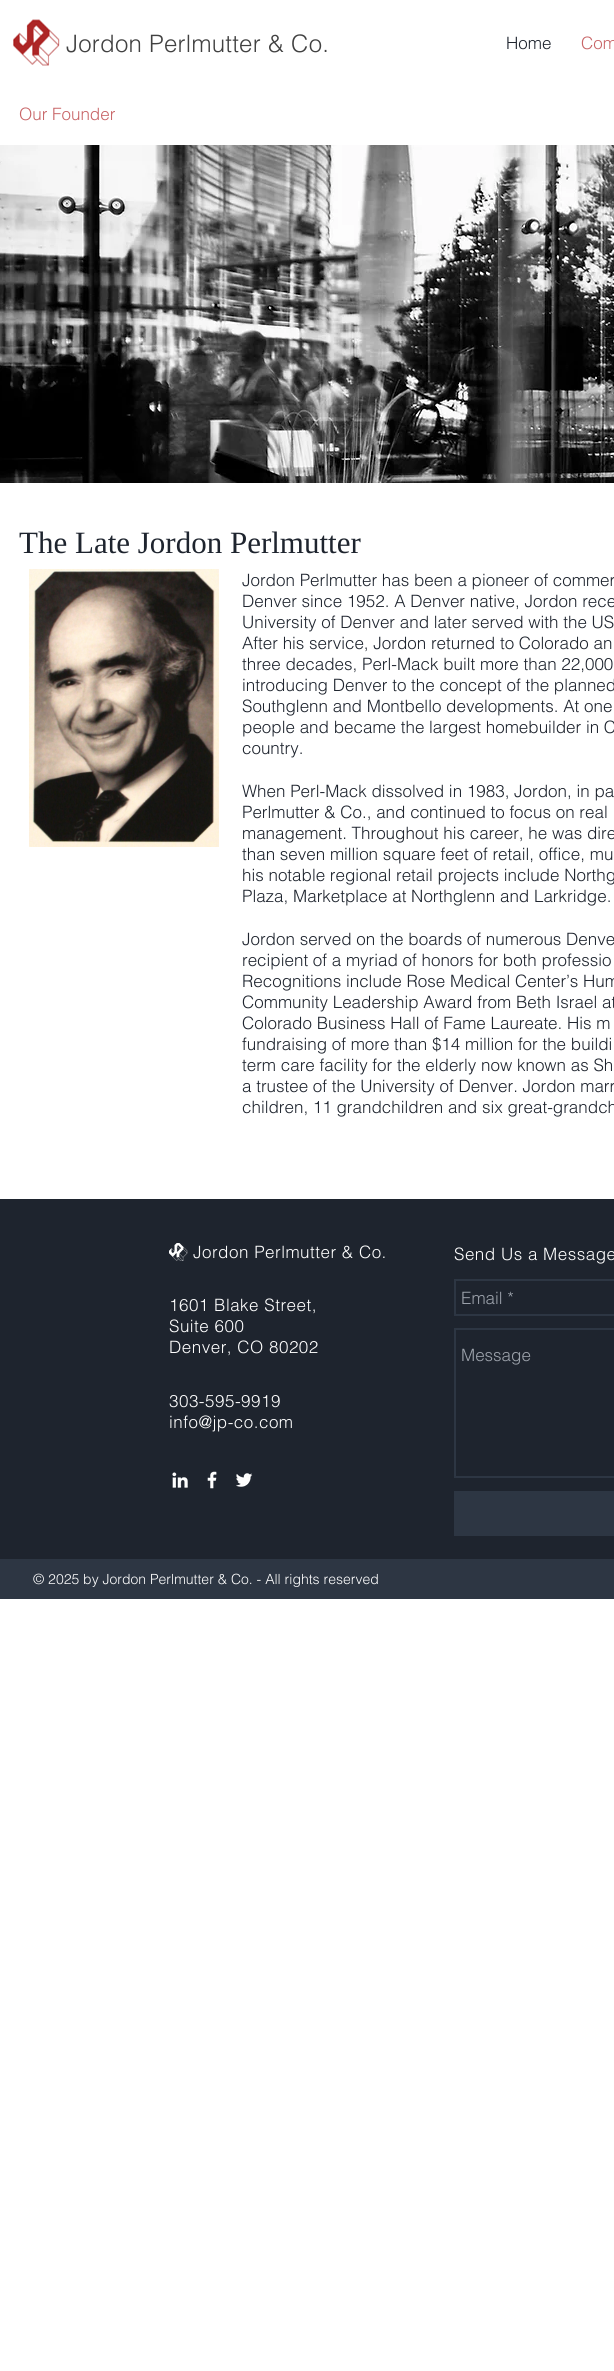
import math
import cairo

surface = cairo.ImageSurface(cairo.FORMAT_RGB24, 614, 2371)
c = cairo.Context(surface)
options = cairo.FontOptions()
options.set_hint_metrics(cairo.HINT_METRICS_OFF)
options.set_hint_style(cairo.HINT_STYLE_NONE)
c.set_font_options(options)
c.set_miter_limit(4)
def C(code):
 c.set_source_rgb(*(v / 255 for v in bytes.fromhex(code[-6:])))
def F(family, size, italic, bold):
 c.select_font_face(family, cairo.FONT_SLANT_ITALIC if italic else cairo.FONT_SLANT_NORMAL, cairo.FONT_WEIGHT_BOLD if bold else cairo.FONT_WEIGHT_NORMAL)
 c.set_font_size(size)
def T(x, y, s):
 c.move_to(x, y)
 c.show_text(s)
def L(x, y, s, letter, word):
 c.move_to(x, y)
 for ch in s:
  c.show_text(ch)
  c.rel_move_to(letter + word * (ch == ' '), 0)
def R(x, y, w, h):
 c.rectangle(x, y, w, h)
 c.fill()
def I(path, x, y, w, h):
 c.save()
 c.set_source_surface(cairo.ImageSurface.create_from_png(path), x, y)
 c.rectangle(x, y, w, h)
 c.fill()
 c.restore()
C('ffffff')
c.paint()
I('1.png',13,19,47,47)
F('helvetica Light',24,0,0)
C('414141')
L(66,52,'Jordon Perlmutter & Co.',.25,0)
F('helvetica Light',17,0,0)
C('1e242e')
T(506,49,'Home')
C('c86567')
T(581,49,'Com')
T(19,120,'Our Founder')
I('2.png',0,145,614,338)
F('Liberation Serif',31,0,0)
C('1e242e')
T(19,553,'The Late Jordon Perlmutter')
I('3.png',29,569,190,278)
F('helvetica Light',17,0,0)
T(242,586,'Jordon Perlmutter has been a pioneer of commer')
T(242,607,'Denver since 1952. A Denver native, Jordon rece')
T(242,628,'University of Denver and later served with the US')
T(242,649,'After his service, Jordon returned to Colorado an')
T(242,670,'three decades, Perl-Mack built more than 22,000')
T(242,691,'introducing Denver to the concept of the planned')
T(242,712,'Southglenn and Montbello developments. At one')
T(242,733,'people and became the largest homebuilder in C')
T(242,754,'country.')
T(242,797,'When Perl-Mack dissolved in 1983, Jordon, in pa')
T(242,818,'Perlmutter & Co., and continued to focus on real')
T(242,839,'management. Throughout his career, he was dire')
T(242,860,'than seven million square feet of retail, office, mu')
T(242,881,'his notable regional retail projects include Northg')
T(242,902,'Plaza, Marketplace at Northglenn and Larkridge.')
T(242,945,'Jordon served on the boards of numerous Denve')
T(242,966,'recipient of a myriad of honors for both professio')
T(242,987,'Recognitions include Rose Medical Center’s Hum')
T(242,1008,'Community Leadership Award from Beth Israel at')
T(242,1029,'Colorado Business Hall of Fame Laureate. His m')
T(242,1050,'fundraising of more than $14 million for the buildi')
T(242,1071,'term care facility for the elderly now known as Sh')
T(242,1092,'a trustee of the University of Denver. Jordon marr')
T(242,1113,'children, 11 grandchildren and six great-grandch')
R(0,1199,614,360)
I('4.png',169,1243,19,18)
C('ffffff')
L(193,1258,'Jordon Perlmutter & Co.',.5,0)
L(454,1260,'Send Us a Message',.5,0)
L(169,1311,'1601 Blake Street,',.5,0)
L(169,1332,'Suite 600',.5,0)
L(169,1353,'Denver, CO 80202',.5,0)
c.rectangle(455,1280,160,35)
C('2d3643')
c.stroke()
C('9ca2ab')
T(461,1304,'Email *')
c.rectangle(455,1329,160,148)
C('2d3643')
c.stroke()
C('9ca2ab')
T(461,1361,'Message')
C('2d3643')
R(454,1491,160,45)
C('ffffff')
L(169,1407,'303-595-9919',.5,0)
L(169,1428,'info@jp-co.com',.5,0)
I('5.png',172,1472,16,16)
I('6.png',207,1471,10,18)
I('7.png',236,1473,17,14)
C('2d3643')
R(0,1559,614,40)
F('helvetica Light',14,0,0)
C('ffffff')
T(33,1584,'© 2025 by Jordon Perlmutter & Co. - All rights reserved')
surface.write_to_png('o.png')
